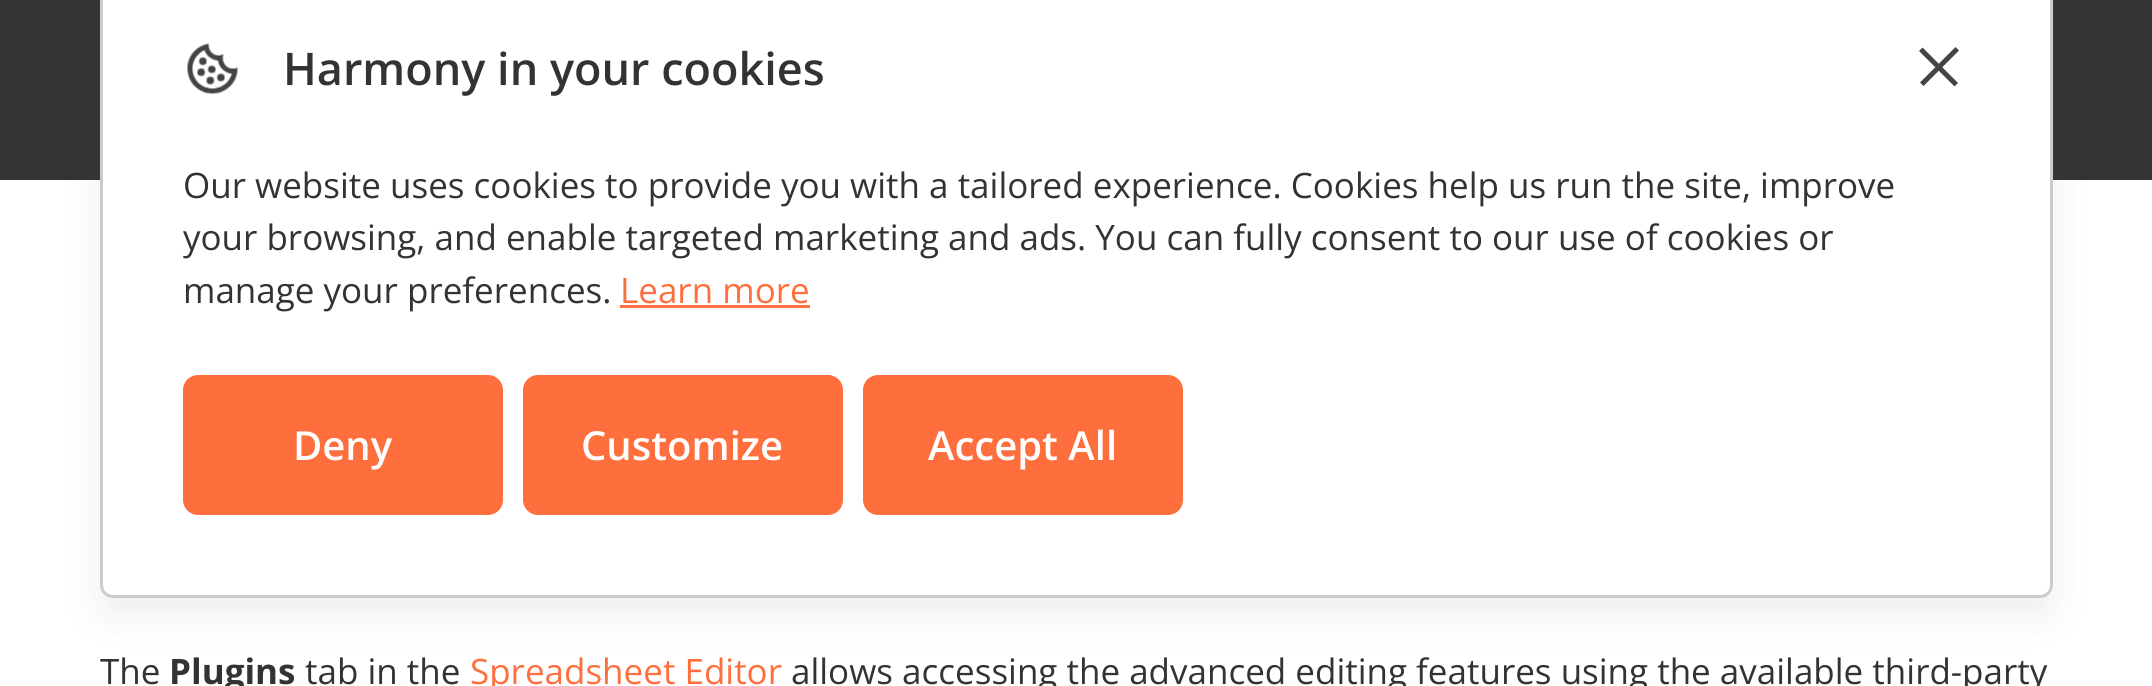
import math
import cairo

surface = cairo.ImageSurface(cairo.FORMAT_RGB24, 2152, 686)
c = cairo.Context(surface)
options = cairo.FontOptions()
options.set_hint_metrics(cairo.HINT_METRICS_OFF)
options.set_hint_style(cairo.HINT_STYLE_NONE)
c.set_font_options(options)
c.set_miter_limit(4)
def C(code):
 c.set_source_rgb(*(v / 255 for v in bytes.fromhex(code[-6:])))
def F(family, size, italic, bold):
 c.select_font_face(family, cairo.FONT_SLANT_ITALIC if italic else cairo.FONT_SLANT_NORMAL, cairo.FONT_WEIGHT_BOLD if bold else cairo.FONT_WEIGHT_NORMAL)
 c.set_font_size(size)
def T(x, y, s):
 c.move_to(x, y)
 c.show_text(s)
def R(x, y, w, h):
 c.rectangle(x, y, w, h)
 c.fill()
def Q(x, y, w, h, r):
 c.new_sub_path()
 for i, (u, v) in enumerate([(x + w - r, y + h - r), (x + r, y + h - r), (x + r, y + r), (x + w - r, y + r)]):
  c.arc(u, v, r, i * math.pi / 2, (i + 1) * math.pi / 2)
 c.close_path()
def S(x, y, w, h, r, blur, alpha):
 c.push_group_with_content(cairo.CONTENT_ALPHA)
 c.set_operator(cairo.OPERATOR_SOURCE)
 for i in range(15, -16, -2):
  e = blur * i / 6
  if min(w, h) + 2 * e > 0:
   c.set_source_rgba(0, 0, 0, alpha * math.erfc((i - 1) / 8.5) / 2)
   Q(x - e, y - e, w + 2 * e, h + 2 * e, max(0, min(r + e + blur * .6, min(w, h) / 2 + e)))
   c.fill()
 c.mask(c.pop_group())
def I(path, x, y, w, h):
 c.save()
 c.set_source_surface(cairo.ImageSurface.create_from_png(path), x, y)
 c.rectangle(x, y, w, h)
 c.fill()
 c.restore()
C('ffffff')
c.paint()
C('333333')
R(0,0,2152,180)
C('555555')
S(100,-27,1953,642,13,19,.1)
C('ffffff')
Q(101.5,-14.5,1950,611,11.5)
c.fill_preserve()
C('cccccc')
c.set_line_width(3)
c.stroke()
I('1.png',187,43,51,51)
F('Open Sans SemiBold',45,0,0)
C('333333')
T(283,85,'Harmony in your cookies')
C('444444')
c.new_path()
c.move_to(1922.5,47.5)
c.line_to(1958,83)
c.line_to(1954.5,86.5)
c.line_to(1919,51)
c.close_path()
c.fill()
c.new_path()
c.move_to(1920,82.5)
c.line_to(1955.5,47)
c.line_to(1959,50.5)
c.line_to(1923.5,86)
c.close_path()
c.fill()
F('Open Sans',35,0,0)
C('333333')
T(183,198,'Our website uses cookies to provide you with a tailored experience. Cookies help us run the site, improve')
c.save()
c.rectangle(183,158,1787,157)
c.clip()
T(183,250,'your browsing, and enable targeted marketing and ads. You can fully consent to our use of cookies or')
c.restore()
T(183,303,'manage your preferences.')
C('ff6f3d')
T(620,303,'Learn more')
R(620,305,190,3)
Q(183,375,320,140,15)
c.fill()
F('Open Sans SemiBold',40,0,0)
C('ffffff')
T(293,460,'Deny')
C('ff6f3d')
Q(523,375,320,140,15)
c.fill()
C('ffffff')
T(581,460,'Customize')
C('ff6f3d')
Q(863,375,320,140,15)
c.fill()
C('ffffff')
T(928,460,'Accept All')
F('Open Sans',35,0,0)
C('333333')
T(100,684,'The')
F('Open Sans',35,0,1)
T(169,684,'Plugins')
F('Open Sans',35,0,0)
T(305,684,'tab in the')
C('ff6f3d')
T(470,684,'Spreadsheet Editor')
C('333333')
T(791,684,'allows accessing the advanced editing features using the available third-party')
surface.write_to_png('o.png')
